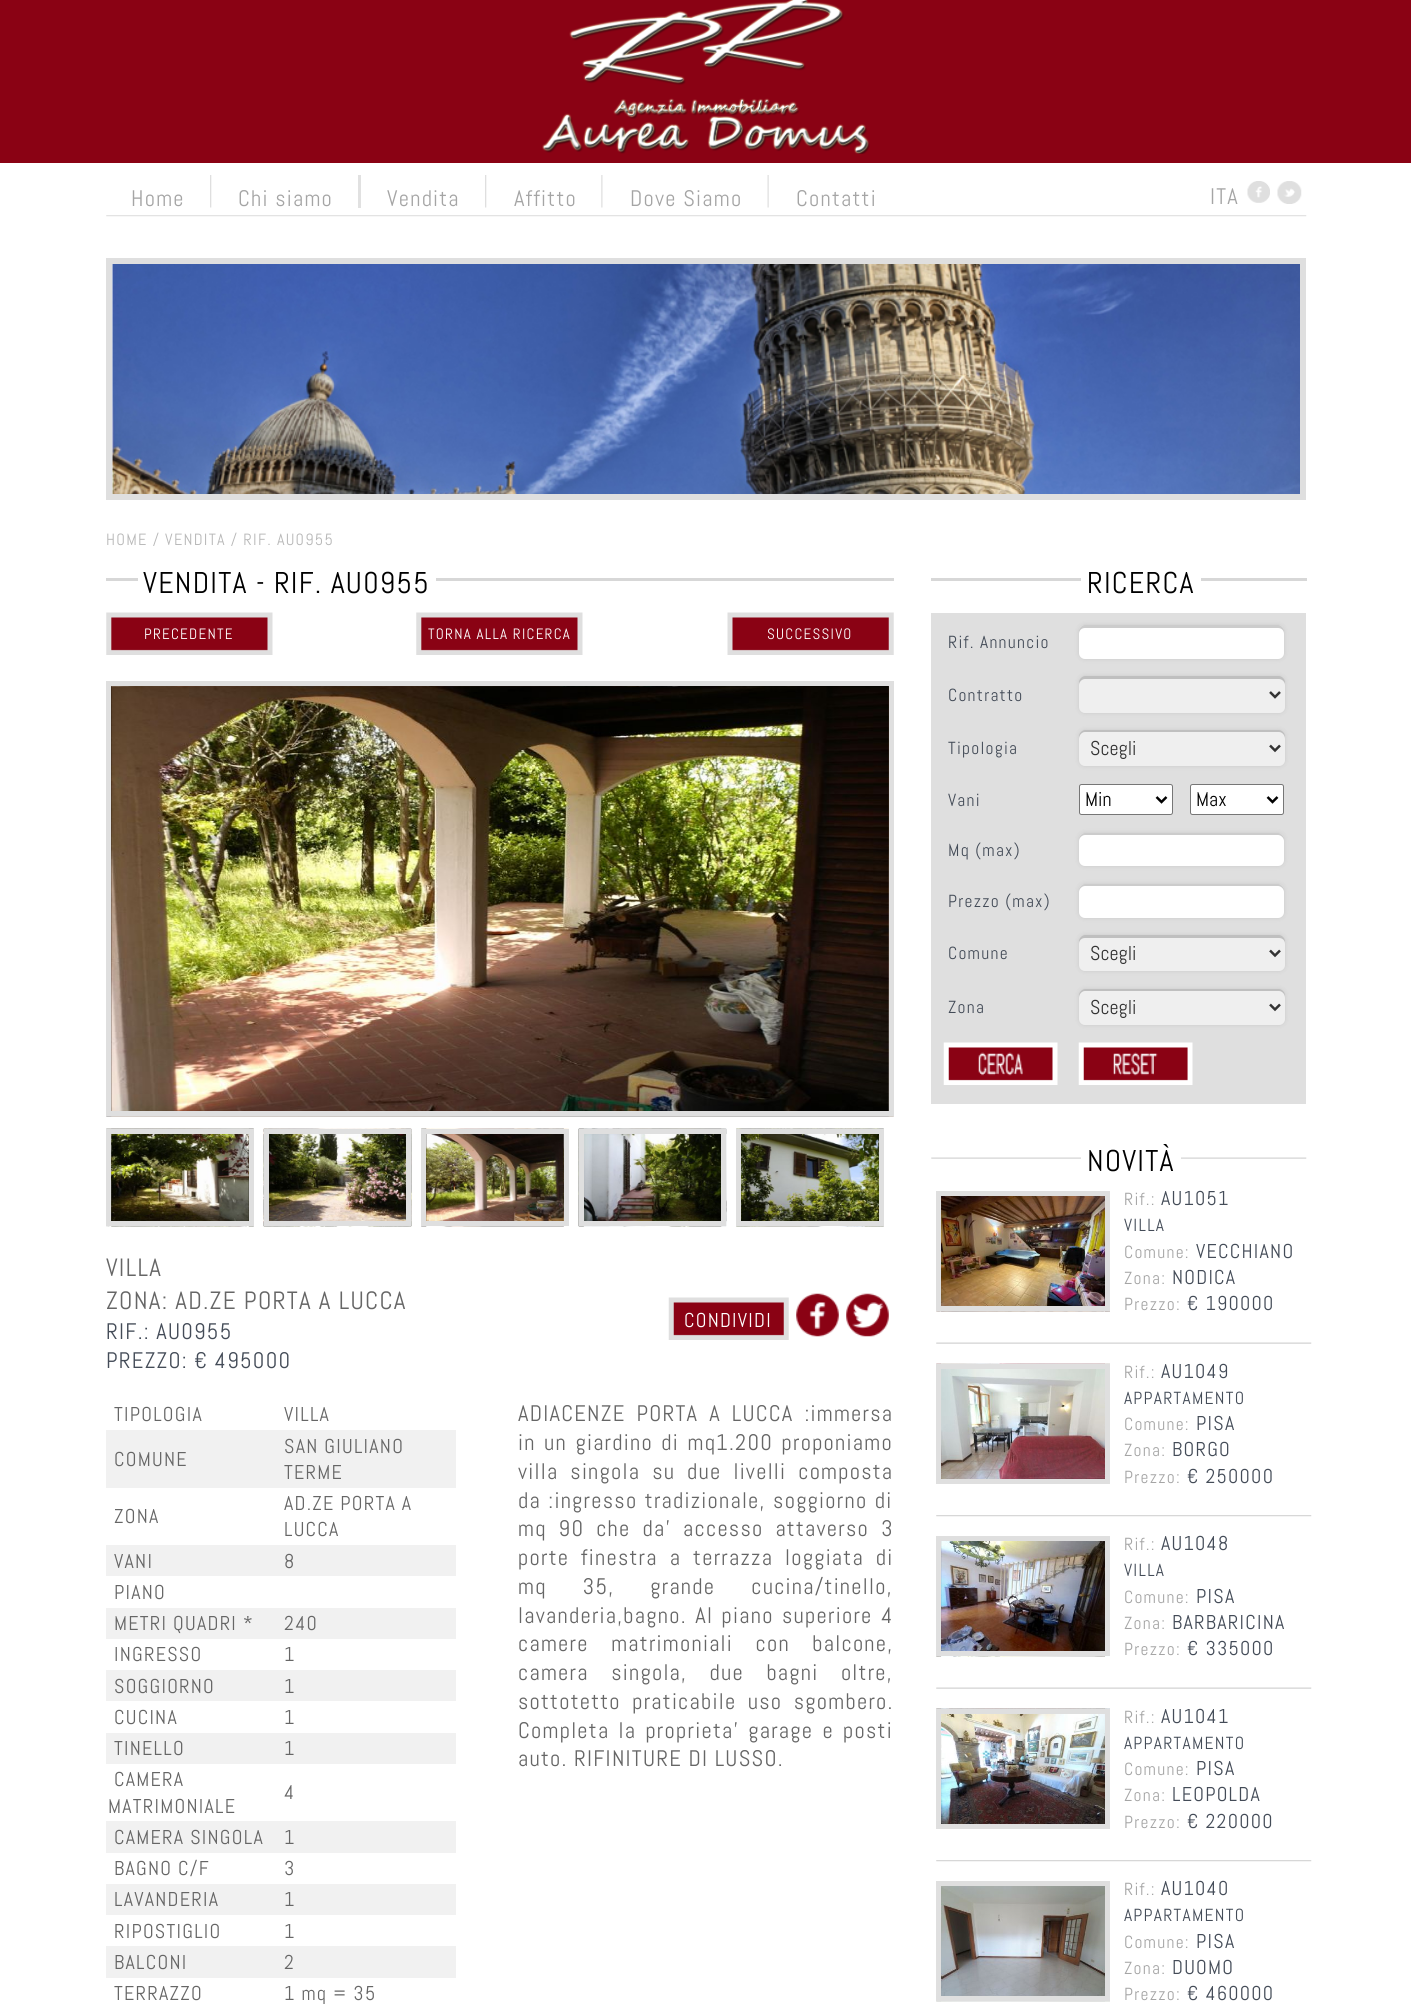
import math
import cairo

surface = cairo.ImageSurface(cairo.FORMAT_RGB24, 1411, 2005)
c = cairo.Context(surface)
options = cairo.FontOptions()
options.set_hint_metrics(cairo.HINT_METRICS_OFF)
options.set_hint_style(cairo.HINT_STYLE_NONE)
c.set_font_options(options)
c.set_miter_limit(4)
def C(code):
 c.set_source_rgb(*(v / 255 for v in bytes.fromhex(code[-6:])))
def F(family, size, italic, bold):
 c.select_font_face(family, cairo.FONT_SLANT_ITALIC if italic else cairo.FONT_SLANT_NORMAL, cairo.FONT_WEIGHT_BOLD if bold else cairo.FONT_WEIGHT_NORMAL)
 c.set_font_size(size)
def T(x, y, s):
 c.move_to(x, y)
 c.show_text(s)
def L(x, y, s, letter, word):
 c.move_to(x, y)
 for ch in s:
  c.show_text(ch)
  c.rel_move_to(letter + word * (ch == ' '), 0)
def R(x, y, w, h):
 c.rectangle(x, y, w, h)
 c.fill()
def Q(x, y, w, h, r):
 c.new_sub_path()
 for i, (u, v) in enumerate([(x + w - r, y + h - r), (x + r, y + h - r), (x + r, y + r), (x + w - r, y + r)]):
  c.arc(u, v, r, i * math.pi / 2, (i + 1) * math.pi / 2)
 c.close_path()
def S(x, y, w, h, r, blur, alpha):
 c.push_group_with_content(cairo.CONTENT_ALPHA)
 c.set_operator(cairo.OPERATOR_SOURCE)
 for i in range(15, -16, -2):
  e = blur * i / 6
  if min(w, h) + 2 * e > 0:
   c.set_source_rgba(0, 0, 0, alpha * math.erfc((i - 1) / 8.5) / 2)
   Q(x - e, y - e, w + 2 * e, h + 2 * e, max(0, min(r + e + blur * .6, min(w, h) / 2 + e)))
   c.fill()
 c.mask(c.pop_group())
def I(path, x, y, w, h):
 c.save()
 c.set_source_surface(cairo.ImageSurface.create_from_png(path), x, y)
 c.rectangle(x, y, w, h)
 c.fill()
 c.restore()
C('8a0214')
c.paint()
I('1.png',542,0,328,154)
C('ffffff')
R(0,163,1411,1842)
F('Abel',22.5,0,0)
C('a5a5a5')
L(131,206,'Home',1.25,0)
I('2.png',210,175,2,33)
L(238,206,'Chi siamo',1.25,0)
C('e1e1e1')
R(358,175,3,33)
C('a5a5a5')
L(387,206,'Vendita',1.25,0)
I('2.png',485,175,2,33)
L(514,206,'Affitto',1.25,0)
I('3.png',601,175,2,33)
L(630,206,'Dove Siamo',1.25,0)
I('4.png',767,175,2,33)
L(796,206,'Contatti',1.25,0)
L(1210,204,'ITA',1.25,0)
I('5.png',1247,181,23,22)
I('6.png',1277,181,25,23)
I('7.png',106,215,1201,2)
I('8.png',112,264,1188,230)
c.rectangle(109,261,1194,236)
C('dfdfdf')
c.set_line_width(6)
c.stroke()
F('Abel',16.25,0,0)
C('b8b8b8')
L(106,545,'HOME / VENDITA / RIF. AU0955',1.25,0)
C('d7d7d7')
R(106,578,788,3)
C('ffffff')
R(138,578,298,3)
F('Abel',30,0,0)
C('000000')
L(143,593,'VENDITA - RIF. AU0955',1.25,0)
I('9.png',106,612,167,43)
F('Abel',15,0,0)
C('ffffff')
L(144,639,'PRECEDENTE',1.25,0)
I('9.png',416,612,167,43)
L(428,639,'TORNA ALLA RICERCA',1.25,0)
I('10.png',727,612,167,43)
L(767,639,'SUCCESSIVO',1.25,0)
I('11.png',106,686,788,431)
c.rectangle(108.5,683.5,783,430)
C('dfdfdf')
c.set_line_width(5)
c.stroke()
I('12.png',106,1128,148,99)
c.rectangle(108.5,1131.5,143,92)
c.stroke()
I('13.png',263,1128,149,99)
c.rectangle(266.5,1131.5,142,92)
c.stroke()
I('14.png',421,1128,148,99)
c.rectangle(423.5,1131.5,143,92)
c.stroke()
I('15.png',578,1128,149,99)
c.rectangle(581.5,1131.5,142,92)
c.stroke()
I('16.png',736,1128,148,99)
c.rectangle(738.5,1131.5,143,92)
c.stroke()
F('Abel',25,0,0)
C('666666')
L(106,1276,'VILLA',1.25,0)
L(106,1309,'ZONA: AD.ZE PORTA A LUCCA',1.25,0)
F('Abel',22.5,0,0)
C('444c58')
L(106,1339,'RIF.: AU0955',1.25,0)
L(106,1368,'PREZZO: € 495000',1.25,0)
I('17.png',668,1297,121,43)
F('Abel',20,0,0)
C('ffffff')
L(684,1327,'CONDIVIDI',1.25,0)
I('18.png',796,1293,43,44)
I('19.png',846,1293,43,44)
C('666666')
L(114,1421,'TIPOLOGIA',1.25,0)
L(284,1421,'VILLA',1.25,0)
C('f1f1f1')
R(106,1430,350,58)
C('666666')
L(114,1466,'COMUNE',1.25,0)
L(284,1453,'SAN GIULIANO',1.25,0)
L(284,1479,'TERME',1.25,0)
L(114,1523,'ZONA',1.25,0)
L(284,1510,'AD.ZE PORTA A',1.25,0)
L(284,1536,'LUCCA',1.25,0)
C('f1f1f1')
R(106,1545,350,31)
C('666666')
L(114,1568,'VANI',1.25,0)
L(284,1568,'8',1.25,0)
L(114,1599,'PIANO',1.25,0)
C('f1f1f1')
R(106,1608,350,31)
C('666666')
L(114,1630,'METRI QUADRI *',1.25,0)
L(284,1630,'240',1.25,0)
L(114,1661,'INGRESSO',1.25,0)
L(284,1661,'1',1.25,0)
C('f1f1f1')
R(106,1670,350,31)
C('666666')
L(114,1693,'SOGGIORNO',1.25,0)
L(284,1693,'1',1.25,0)
L(114,1724,'CUCINA',1.25,0)
L(284,1724,'1',1.25,0)
C('f1f1f1')
R(106,1733,350,31)
C('666666')
L(114,1755,'TINELLO',1.25,0)
L(284,1755,'1',1.25,0)
L(114,1786,'CAMERA',1.25,0)
L(108,1813,'MATRIMONIALE',1.25,0)
L(284,1799,'4',1.25,0)
C('f1f1f1')
R(106,1821,350,32)
C('666666')
L(114,1844,'CAMERA SINGOLA',1.25,0)
L(284,1844,'1',1.25,0)
L(114,1875,'BAGNO C/F',1.25,0)
L(284,1875,'3',1.25,0)
C('f1f1f1')
R(106,1884,350,31)
C('666666')
L(114,1906,'LAVANDERIA',1.25,0)
L(284,1906,'1',1.25,0)
L(114,1938,'RIPOSTIGLIO',1.25,0)
L(284,1938,'1',1.25,0)
C('f1f1f1')
R(106,1946,350,32)
C('666666')
L(114,1969,'BALCONI',1.25,0)
L(284,1969,'2',1.25,0)
L(114,2000,'TERRAZZO',1.25,0)
L(284,2000,'1 mq = 35',1.25,0)
F('Abel',22.5,0,0)
L(518,1421,'ADIACENZE PORTA A LUCCA :immersa',1.25,4.5)
L(518,1450,'in un giardino di mq1.200 proponiamo',1.25,2)
L(518,1479,'villa singola su due livelli composta',1.25,5.5)
L(518,1508,'da :ingresso tradizionale, soggiorno di',1.25,1)
L(518,1536,'mq 90 che da\' accesso attaverso 3',1.25,5.5)
L(518,1565,'porte finestra a terrazza loggiata di',1.25,5.5)
L(518,1594,'mq 35, grande cucina/tinello,',1.25,29.5)
L(518,1623,'lavanderia,bagno. Al piano superiore 4',1.25,2)
L(518,1651,'camere matrimoniali con balcone,',1.25,16)
L(518,1680,'camera singola, due bagni oltre,',1.25,16)
L(518,1709,'sottotetto praticabile uso sgombero.',1.25,5)
L(518,1738,'Completa la proprieta\' garage e posti',1.25,2.75)
L(518,1766,'auto. RIFINITURE DI LUSSO.',1.25,0)
C('d7d7d7')
R(931,578,376,3)
C('ffffff')
R(1081,578,120,3)
F('Abel',30,0,0)
C('000000')
L(1087,593,'RICERCA',1.25,0)
C('dfdfdf')
R(931,613,375,491)
F('Abel',17.5,0,0)
C('444c58')
L(948,648,'Rif. Annuncio',1.25,0)
C('000000')
S(1079,625,205,34,6,2.5,.1)
C('ffffff')
Q(1079,625,205,34,6)
c.fill()
c.set_source_rgba(0,0,0,0.2)
c.new_path()
c.move_to(1085,628)
c.line_to(1278,628)
c.curve_to(1281,628,1284,630,1284,634)
c.line_to(1284,631)
c.curve_to(1284,628,1281,625,1278,625)
c.line_to(1085,625)
c.curve_to(1082,625,1079,628,1079,631)
c.line_to(1079,634)
c.curve_to(1079,630,1082,628,1085,628)
c.close_path()
c.fill()
C('444c58')
L(948,701,'Contratto',1.25,0)
C('000000')
S(1079,676,206,37,6,2.5,.1)
C('efefef')
Q(1079,676,206,37,6)
c.fill()
c.set_source_rgba(0,0,0,0.2)
c.new_path()
c.move_to(1085,679)
c.line_to(1279,679)
c.curve_to(1282,679,1285,682,1285,685)
c.line_to(1285,682)
c.curve_to(1285,679,1282,676,1279,676)
c.line_to(1085,676)
c.curve_to(1082,676,1079,679,1079,682)
c.line_to(1079,685)
c.curve_to(1079,682,1082,679,1085,679)
c.close_path()
c.fill()
c.new_path()
c.move_to(1270,692)
c.line_to(1275,697)
c.line_to(1280,692)
C('333333')
c.set_line_width(2.5)
c.stroke()
C('444c58')
L(948,754,'Tipologia',1.25,0)
C('000000')
S(1079,730,206,36,6,2.5,.1)
C('efefef')
Q(1079,730,206,36,6)
c.fill()
c.set_source_rgba(0,0,0,0.2)
c.new_path()
c.move_to(1085,732)
c.line_to(1279,732)
c.curve_to(1282,732,1285,735,1285,739)
c.line_to(1285,736)
c.curve_to(1285,733,1282,730,1279,730)
c.line_to(1085,730)
c.curve_to(1082,730,1079,733,1079,736)
c.line_to(1079,739)
c.curve_to(1079,735,1082,732,1085,732)
c.close_path()
c.fill()
c.new_path()
c.move_to(1270,745.5)
c.line_to(1275,750.5)
c.line_to(1280,745.5)
C('333333')
c.stroke()
F('Abel',20,0,0)
T(1090,755,'Scegli')
F('Abel',17.5,0,0)
C('444c58')
L(948,806,'Vani',1.25,0)
C('ffffff')
Q(1079.5,784.5,93,30,2)
c.fill_preserve()
C('767676')
c.set_line_width(1)
c.stroke()
c.new_path()
c.move_to(1156.5,797)
c.line_to(1161.5,802)
c.line_to(1166.5,797)
C('000000')
c.set_line_width(2.5)
c.stroke()
F('Abel',20,0,0)
T(1085,806,'Min')
C('ffffff')
Q(1190.5,784.5,93,30,2)
c.fill_preserve()
C('767676')
c.set_line_width(1)
c.stroke()
c.new_path()
c.move_to(1267.5,797)
c.line_to(1272.5,802)
c.line_to(1277.5,797)
C('000000')
c.set_line_width(2.5)
c.stroke()
T(1196,806,'Max')
F('Abel',17.5,0,0)
C('444c58')
L(948,856,'Mq (max)',1.25,0)
C('000000')
S(1079,833,205,33,6,2.5,.1)
C('ffffff')
Q(1079,833,205,33,6)
c.fill()
c.set_source_rgba(0,0,0,0.2)
c.new_path()
c.move_to(1085,835)
c.line_to(1278,835)
c.curve_to(1281,835,1284,838,1284,841)
c.line_to(1284,839)
c.curve_to(1284,836,1281,833,1278,833)
c.line_to(1085,833)
c.curve_to(1082,833,1079,836,1079,839)
c.line_to(1079,841)
c.curve_to(1079,838,1082,835,1085,835)
c.close_path()
c.fill()
C('444c58')
L(948,907,'Prezzo (max)',1.25,0)
C('000000')
S(1079,884,205,34,6,2.5,.1)
C('ffffff')
Q(1079,884,205,34,6)
c.fill()
c.set_source_rgba(0,0,0,0.2)
c.new_path()
c.move_to(1085,886)
c.line_to(1278,886)
c.curve_to(1281,886,1284,889,1284,892)
c.line_to(1284,890)
c.curve_to(1284,887,1281,884,1278,884)
c.line_to(1085,884)
c.curve_to(1082,884,1079,887,1079,890)
c.line_to(1079,892)
c.curve_to(1079,889,1082,886,1085,886)
c.close_path()
c.fill()
C('444c58')
L(948,959,'Comune',1.25,0)
C('000000')
S(1079,935,206,36,6,2.5,.1)
C('efefef')
Q(1079,935,206,36,6)
c.fill()
c.set_source_rgba(0,0,0,0.2)
c.new_path()
c.move_to(1085,938)
c.line_to(1279,938)
c.curve_to(1282,938,1285,940,1285,944)
c.line_to(1285,941)
c.curve_to(1285,938,1282,935,1279,935)
c.line_to(1085,935)
c.curve_to(1082,935,1079,938,1079,941)
c.line_to(1079,944)
c.curve_to(1079,940,1082,938,1085,938)
c.close_path()
c.fill()
c.new_path()
c.move_to(1270,950.5)
c.line_to(1275,955.5)
c.line_to(1280,950.5)
C('333333')
c.stroke()
F('Abel',20,0,0)
T(1090,960,'Scegli')
F('Abel',17.5,0,0)
C('444c58')
L(948,1013,'Zona',1.25,0)
C('000000')
S(1079,989,206,36,6,2.5,.1)
C('efefef')
Q(1079,989,206,36,6)
c.fill()
c.set_source_rgba(0,0,0,0.2)
c.new_path()
c.move_to(1085,991)
c.line_to(1279,991)
c.curve_to(1282,991,1285,994,1285,998)
c.line_to(1285,995)
c.curve_to(1285,992,1282,989,1279,989)
c.line_to(1085,989)
c.curve_to(1082,989,1079,992,1079,995)
c.line_to(1079,998)
c.curve_to(1079,994,1082,991,1085,991)
c.close_path()
c.fill()
c.new_path()
c.move_to(1270,1004.5)
c.line_to(1275,1009.5)
c.line_to(1280,1004.5)
C('333333')
c.stroke()
F('Abel',20,0,0)
T(1090,1014,'Scegli')
I('20.png',943,1042,115,43)
I('21.png',1078,1042,115,43)
I('22.png',931,1157,376,2)
C('ffffff')
R(1081,1157,100,2)
F('Abel',30,0,0)
C('000000')
L(1087,1171,'NOVITÀ',1.25,0)
I('23.png',936,1196,174,116)
c.rectangle(938.5,1193.5,169,115)
C('dfdfdf')
c.set_line_width(5)
c.stroke()
F('Abel',17.5,0,0)
C('a5a5a5')
L(1124,1205,'Rif.:',1.25,0)
F('Abel',20,0,0)
C('444c58')
L(1161,1205,'AU1051',1.25,0)
F('Abel',17.5,0,0)
L(1124,1231,'VILLA',1.25,0)
C('a5a5a5')
L(1124,1258,'Comune:',1.25,0)
F('Abel',20,0,0)
C('444c58')
L(1196,1258,'VECCHIANO',1.25,0)
F('Abel',17.5,0,0)
C('a5a5a5')
L(1124,1284,'Zona:',1.25,0)
F('Abel',20,0,0)
C('444c58')
L(1172,1284,'NODICA',1.25,0)
F('Abel',17.5,0,0)
C('a5a5a5')
L(1124,1310,'Prezzo:',1.25,0)
F('Abel',20,0,0)
C('444c58')
L(1187,1310,'€ 190000',1.25,0)
I('24.png',936,1342,376,2)
I('25.png',936,1363,174,116)
c.rectangle(938.5,1366.5,169,115)
C('dfdfdf')
c.stroke()
F('Abel',17.5,0,0)
C('a5a5a5')
L(1124,1378,'Rif.:',1.25,0)
F('Abel',20,0,0)
C('444c58')
L(1161,1378,'AU1049',1.25,0)
F('Abel',17.5,0,0)
L(1124,1404,'APPARTAMENTO',1.25,0)
C('a5a5a5')
L(1124,1430,'Comune:',1.25,0)
F('Abel',20,0,0)
C('444c58')
L(1196,1430,'PISA',1.25,0)
F('Abel',17.5,0,0)
C('a5a5a5')
L(1124,1456,'Zona:',1.25,0)
F('Abel',20,0,0)
C('444c58')
L(1172,1456,'BORGO',1.25,0)
F('Abel',17.5,0,0)
C('a5a5a5')
L(1124,1483,'Prezzo:',1.25,0)
F('Abel',20,0,0)
C('444c58')
L(1187,1483,'€ 250000',1.25,0)
I('26.png',936,1515,376,2)
I('27.png',936,1541,174,116)
c.rectangle(938.5,1538.5,169,115)
C('dfdfdf')
c.stroke()
F('Abel',17.5,0,0)
C('a5a5a5')
L(1124,1550,'Rif.:',1.25,0)
F('Abel',20,0,0)
C('444c58')
L(1161,1550,'AU1048',1.25,0)
F('Abel',17.5,0,0)
L(1124,1576,'VILLA',1.25,0)
C('a5a5a5')
L(1124,1603,'Comune:',1.25,0)
F('Abel',20,0,0)
C('444c58')
L(1196,1603,'PISA',1.25,0)
F('Abel',17.5,0,0)
C('a5a5a5')
L(1124,1629,'Zona:',1.25,0)
F('Abel',20,0,0)
C('444c58')
L(1172,1629,'BARBARICINA',1.25,0)
F('Abel',17.5,0,0)
C('a5a5a5')
L(1124,1655,'Prezzo:',1.25,0)
F('Abel',20,0,0)
C('444c58')
L(1187,1655,'€ 335000',1.25,0)
I('24.png',936,1687,376,2)
I('28.png',936,1708,174,116)
c.rectangle(938.5,1711.5,169,115)
C('dfdfdf')
c.stroke()
F('Abel',17.5,0,0)
C('a5a5a5')
L(1124,1723,'Rif.:',1.25,0)
F('Abel',20,0,0)
C('444c58')
L(1161,1723,'AU1041',1.25,0)
F('Abel',17.5,0,0)
L(1124,1749,'APPARTAMENTO',1.25,0)
C('a5a5a5')
L(1124,1775,'Comune:',1.25,0)
F('Abel',20,0,0)
C('444c58')
L(1196,1775,'PISA',1.25,0)
F('Abel',17.5,0,0)
C('a5a5a5')
L(1124,1801,'Zona:',1.25,0)
F('Abel',20,0,0)
C('444c58')
L(1172,1801,'LEOPOLDA',1.25,0)
F('Abel',17.5,0,0)
C('a5a5a5')
L(1124,1828,'Prezzo:',1.25,0)
F('Abel',20,0,0)
C('444c58')
L(1187,1828,'€ 220000',1.25,0)
I('26.png',936,1860,376,2)
I('29.png',936,1886,174,116)
c.rectangle(938.5,1883.5,169,115)
C('dfdfdf')
c.stroke()
F('Abel',17.5,0,0)
C('a5a5a5')
L(1124,1895,'Rif.:',1.25,0)
F('Abel',20,0,0)
C('444c58')
L(1161,1895,'AU1040',1.25,0)
F('Abel',17.5,0,0)
L(1124,1921,'APPARTAMENTO',1.25,0)
C('a5a5a5')
L(1124,1948,'Comune:',1.25,0)
F('Abel',20,0,0)
C('444c58')
L(1196,1948,'PISA',1.25,0)
F('Abel',17.5,0,0)
C('a5a5a5')
L(1124,1974,'Zona:',1.25,0)
F('Abel',20,0,0)
C('444c58')
L(1172,1974,'DUOMO',1.25,0)
F('Abel',17.5,0,0)
C('a5a5a5')
L(1124,2000,'Prezzo:',1.25,0)
F('Abel',20,0,0)
C('444c58')
L(1187,2000,'€ 460000',1.25,0)
surface.write_to_png('o.png')
